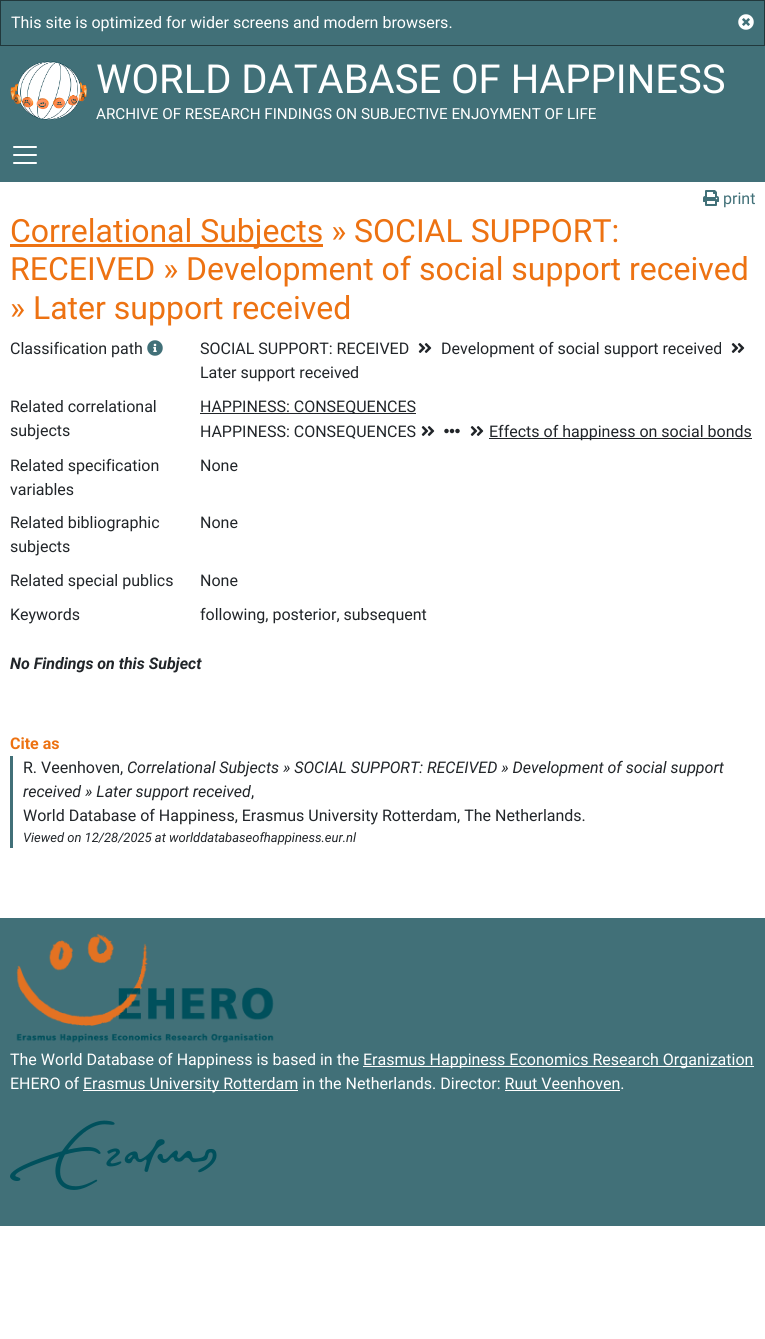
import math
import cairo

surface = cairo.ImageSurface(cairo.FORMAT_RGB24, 765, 1339)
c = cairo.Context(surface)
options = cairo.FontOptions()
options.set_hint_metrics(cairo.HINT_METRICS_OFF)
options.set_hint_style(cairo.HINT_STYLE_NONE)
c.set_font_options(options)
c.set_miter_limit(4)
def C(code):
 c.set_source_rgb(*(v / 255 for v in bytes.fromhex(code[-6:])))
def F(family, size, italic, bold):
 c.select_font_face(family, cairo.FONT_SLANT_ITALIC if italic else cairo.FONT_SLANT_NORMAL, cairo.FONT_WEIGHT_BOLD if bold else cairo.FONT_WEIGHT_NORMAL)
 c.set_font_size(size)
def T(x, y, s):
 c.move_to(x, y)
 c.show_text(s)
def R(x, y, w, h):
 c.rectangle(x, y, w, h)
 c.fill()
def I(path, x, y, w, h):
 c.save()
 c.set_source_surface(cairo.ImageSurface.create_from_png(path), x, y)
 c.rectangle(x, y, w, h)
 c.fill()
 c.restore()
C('ffffff')
c.paint()
C('417078')
c.rectangle(.5,.5,764,45)
c.fill_preserve()
C('21383c')
c.set_line_width(1)
c.stroke()
F('Roboto',16,0,0)
C('ffffff')
T(11,28,'This site is optimized for wider screens and modern browsers.')
I('1.png',738,14,16,16)
C('417078')
R(0,46,765,136)
I('2.png',10,61,77,59)
F('Roboto',40,0,0)
C('ffffff')
T(96,93,'WORLD DATABASE OF HAPPINESS')
F('Roboto',15.2,0,0)
T(96,119,'ARCHIVE OF RESEARCH FINDINGS ON SUBJECTIVE ENJOYMENT OF LIFE')
I('3.png',13,146,24,18)
I('4.png',703,190,16,16)
F('Roboto',16,0,0)
C('417078')
T(723,204,'print')
C('ed7212')
R(10,244,313,3)
F('Roboto',32,0,0)
T(10,242,'Correlational Subjects » SOCIAL SUPPORT:')
T(10,280,'RECEIVED » Development of social support received')
T(10,319,'» Later support received')
F('Roboto',16,0,0)
C('212529')
T(10,354,'Classification path')
I('5.png',147,340,16,16)
T(200,354,'SOCIAL SUPPORT: RECEIVED')
I('6.png',418,343,14,10)
T(441,354,'Development of social support received')
I('6.png',731,343,14,10)
T(200,378,'Later support received')
T(10,412,'Related correlational')
T(10,436,'subjects')
R(200,413,216,1)
T(200,412,'HAPPINESS: CONSEQUENCES')
T(200,437,'HAPPINESS: CONSEQUENCES')
I('6.png',421,426,14,10)
I('7.png',444,428,16,6)
I('6.png',470,426,14,10)
R(489,438,263,1)
T(489,437,'Effects of happiness on social bonds')
T(10,471,'Related specification')
T(10,495,'variables')
T(200,471,'None')
T(10,528,'Related bibliographic')
T(10,552,'subjects')
T(200,528,'None')
T(10,586,'Related special publics')
T(200,586,'None')
T(10,620,'Keywords')
T(200,620,'following, posterior, subsequent')
F('Roboto',16,1,1)
T(10,669,'No Findings on this Subject')
F('Roboto',16,0,1)
C('ed7212')
T(10,749,'Cite as')
C('417078')
R(10,756,3,92)
F('Roboto',16,0,0)
C('212529')
T(23,773,'R. Veenhoven,')
F('Roboto',16,1,0)
T(127,773,'Correlational Subjects » SOCIAL SUPPORT: RECEIVED » Development of social support')
T(23,797,'received » Later support received')
F('Roboto',16,0,0)
T(251,797,',')
T(23,821,'World Database of Happiness, Erasmus University Rotterdam, The Netherlands.')
F('Roboto',13,1,0)
T(23,842,'Viewed on 12/28/2025 at worlddatabaseofhappiness.eur.nl')
C('417078')
R(0,918,765,308)
I('8.png',16,933,258,110)
F('Roboto',16,0,0)
C('ffffff')
T(10,1065,'The World Database of Happiness is based in the')
R(363,1066,391,1)
T(363,1065,'Erasmus Happiness Economics Research Organization')
T(10,1089,'EHERO of')
R(83,1090,215,1)
T(83,1089,'Erasmus University Rotterdam in the Netherlands. Director: Ruut Veenhoven.')
R(505,1090,115,1)
I('9.png',10,1120,207,70)
surface.write_to_png('o.png')
